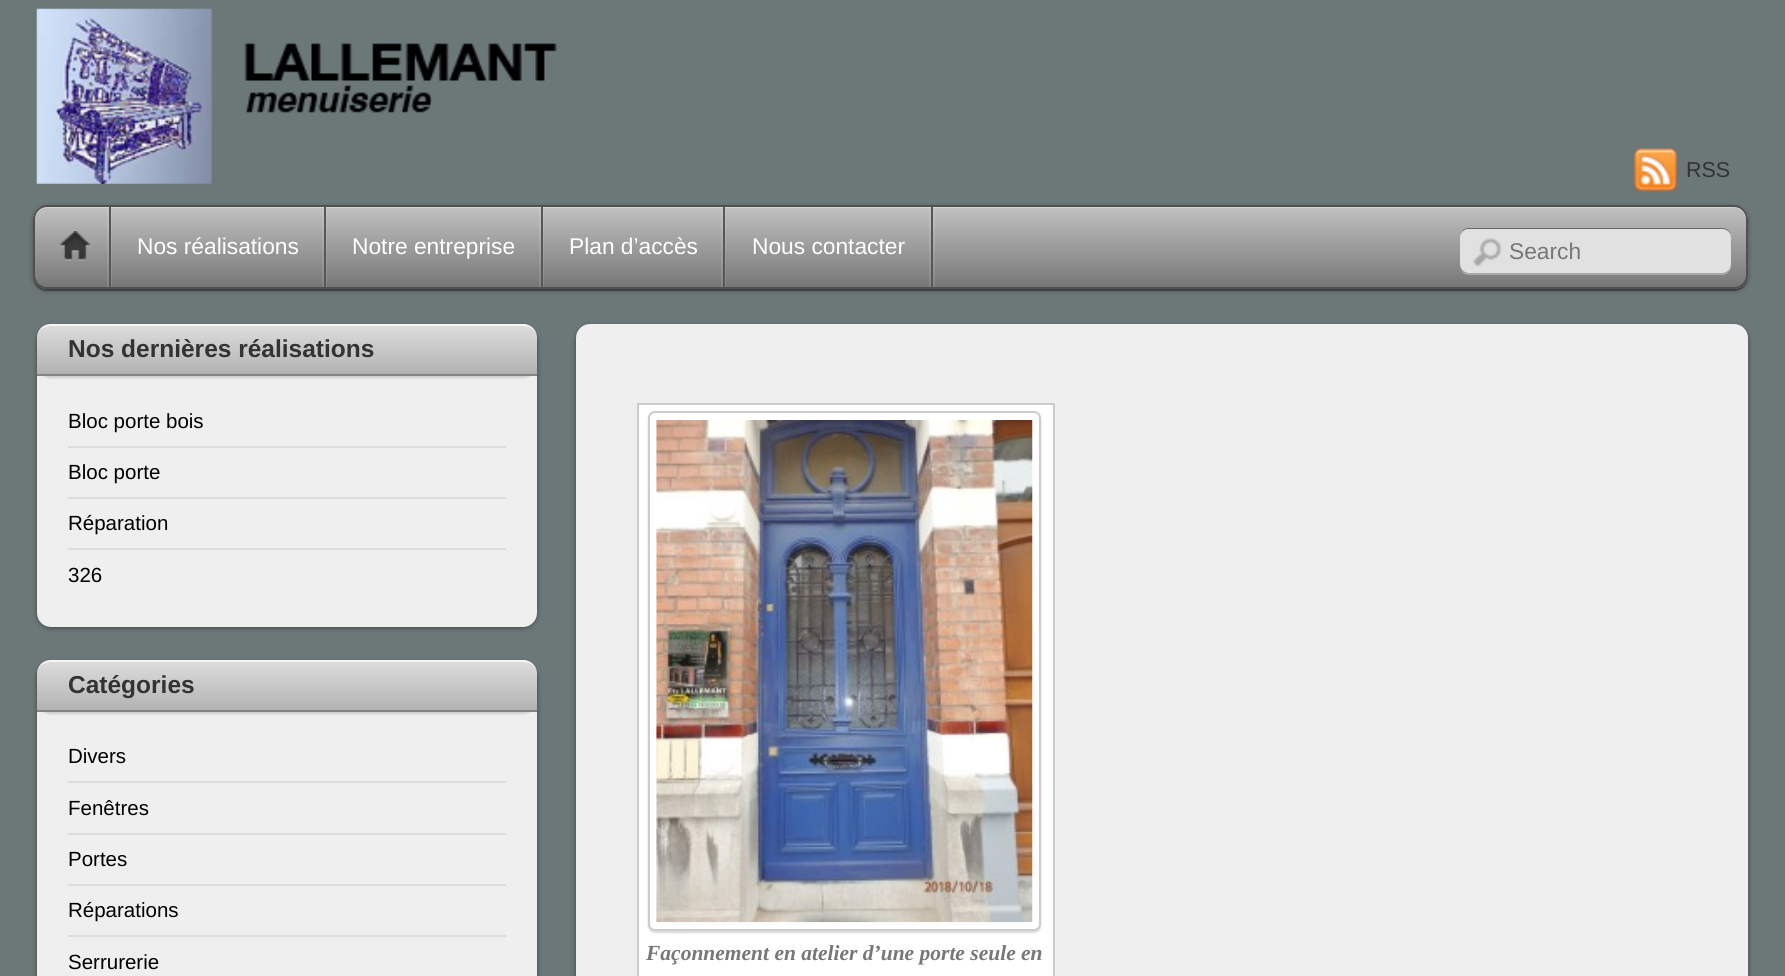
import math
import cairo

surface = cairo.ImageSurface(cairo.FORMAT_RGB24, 1785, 976)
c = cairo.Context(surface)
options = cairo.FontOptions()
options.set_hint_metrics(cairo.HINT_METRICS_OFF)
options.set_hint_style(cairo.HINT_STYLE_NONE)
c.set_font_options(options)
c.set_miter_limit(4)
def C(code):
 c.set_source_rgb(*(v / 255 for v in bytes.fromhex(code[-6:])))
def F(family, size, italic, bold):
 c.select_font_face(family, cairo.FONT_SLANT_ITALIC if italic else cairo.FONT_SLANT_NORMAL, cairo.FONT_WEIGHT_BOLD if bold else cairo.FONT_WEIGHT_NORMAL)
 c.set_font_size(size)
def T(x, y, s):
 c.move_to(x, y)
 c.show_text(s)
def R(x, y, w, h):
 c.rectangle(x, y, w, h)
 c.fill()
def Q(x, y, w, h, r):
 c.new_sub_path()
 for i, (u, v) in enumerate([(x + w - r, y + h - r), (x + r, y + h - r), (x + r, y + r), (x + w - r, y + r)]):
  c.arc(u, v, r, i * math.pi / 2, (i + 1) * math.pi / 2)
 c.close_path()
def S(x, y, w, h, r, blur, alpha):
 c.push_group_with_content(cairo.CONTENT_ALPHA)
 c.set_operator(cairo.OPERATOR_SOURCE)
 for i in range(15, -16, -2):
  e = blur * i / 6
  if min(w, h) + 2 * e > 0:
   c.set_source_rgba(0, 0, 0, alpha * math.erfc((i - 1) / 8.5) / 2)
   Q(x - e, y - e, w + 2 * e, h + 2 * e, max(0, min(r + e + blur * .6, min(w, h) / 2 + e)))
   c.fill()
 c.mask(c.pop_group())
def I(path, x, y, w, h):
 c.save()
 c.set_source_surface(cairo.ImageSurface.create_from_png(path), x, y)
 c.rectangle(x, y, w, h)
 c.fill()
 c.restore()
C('6c7778')
c.paint()
I('1.png',36,8,521,176)
I('2.png',1634,148,43,43)
F('Liberation Sans',21.5,0,0)
C('333333')
T(1686,177,'RSS')
C('000000')
S(33,207,1715,84,14,2.5,.3)
c.set_source_rgba(0,0,0,0.3)
c.new_path()
c.move_to(33,218)
c.line_to(33,277)
c.curve_to(33,285,39,291,47,291)
c.line_to(1734,291)
c.curve_to(1742,291,1748,285,1748,277)
c.curve_to(1747,284,1741,289,1734,289)
c.line_to(47,289)
c.curve_to(40,289,33,282,33,275)
c.close_path()
c.fill()
C('777777')
Q(33,205,1715,84,14)
c.fill()
c.save()
Q(33,205,1715,84,14)
c.clip()
gradient = cairo.LinearGradient(891,206,891,287)
gradient.add_color_stop_rgba(0,1,1,1,.55)
gradient.add_color_stop_rgba(1,1,1,1,0)
c.set_source(gradient)
R(33,207,1715,77)
c.restore()
c.set_source_rgba(1,1,1,0.3)
c.new_path()
c.move_to(47,208)
c.line_to(1734,208)
c.curve_to(1741,208,1746,214,1746,220)
c.line_to(1746,276)
c.curve_to(1746,278,1745,280,1745,282)
c.curve_to(1746,280,1747,278,1747,275)
c.line_to(1747,219)
c.curve_to(1747,212,1742,207,1735,207)
c.line_to(47,207)
c.curve_to(40,207,35,212,35,219)
c.line_to(35,220)
c.curve_to(35,214,40,208,47,208)
c.close_path()
c.fill()
Q(34,206,1713,82,13)
C('505050')
c.stroke()
c.set_source_rgba(1,1,1,0.1)
R(111,207,1,80)
R(107,207,2,80)
C('575757')
R(109,207,2,80)
I('3.png',59,231,32,30)
c.set_source_rgba(1,1,1,0.1)
R(326,207,1,80)
R(322,207,2,80)
C('575757')
R(324,207,2,80)
F('Liberation Sans',22.75,0,0)
C('ffffff')
T(137,254,'Nos réalisations')
c.set_source_rgba(1,1,1,0.1)
R(543,207,1,80)
R(539,207,2,80)
C('575757')
R(541,207,2,80)
C('ffffff')
T(352,254,'Notre entreprise')
c.set_source_rgba(1,1,1,0.1)
R(725,207,1,80)
R(721,207,2,80)
C('575757')
R(723,207,2,80)
C('ffffff')
T(569,254,'Plan d’accès')
c.set_source_rgba(1,1,1,0.1)
R(933,207,2,80)
R(929,207,2,80)
C('575757')
R(931,207,2,80)
C('ffffff')
T(752,254,'Nous contacter')
c.set_source_rgba(1,1,1,0.3)
c.new_path()
c.move_to(1460,268)
c.curve_to(1461,272,1465,275,1469,275)
c.line_to(1722,275)
c.curve_to(1727,275,1731,271,1731,266)
c.line_to(1731,238)
c.line_to(1731,256)
c.curve_to(1731,262,1732,273,1722,273)
c.line_to(1468,273)
c.curve_to(1465,273,1461,271,1460,268)
c.close_path()
c.fill()
c.set_source_rgba(0,0,0,0.4)
c.new_path()
c.move_to(1469,228)
c.curve_to(1465,228,1462,230,1461,234)
c.curve_to(1462,231,1465,229,1468,229)
c.line_to(1722,229)
c.curve_to(1727,229,1731,233,1731,238)
c.line_to(1731,264)
c.line_to(1731,250)
c.curve_to(1731,242,1733,228,1722,228)
c.close_path()
c.fill()
C('e1e1e1')
Q(1460,229,271,44,9)
c.fill()
I('4.png',1473,238,29,28)
C('777777')
T(1509,259,'Search')
C('000000')
S(37,327,500,301,14,2.5,.4)
C('efefef')
Q(37,326,500,301,14)
c.fill()
C('000000')
S(37,326,500,52,14,1,.15)
C('a9a9a9')
c.new_path()
c.move_to(51,324)
c.line_to(523,324)
c.curve_to(530.5,324,537,330.5,537,338)
c.line_to(537,376)
c.line_to(37,376)
c.line_to(37,338)
c.curve_to(37,330.5,43.5,324,51,324)
c.close_path()
c.fill()
c.save()
c.new_path()
c.move_to(51,324)
c.line_to(523,324)
c.curve_to(530.5,324,537,330.5,537,338)
c.line_to(537,376)
c.line_to(37,376)
c.line_to(37,338)
c.curve_to(37,330.5,43.5,324,51,324)
c.close_path()
c.clip()
gradient = cairo.LinearGradient(287,325,287,375)
gradient.add_color_stop_rgba(0,1,1,1,.6)
gradient.add_color_stop_rgba(1,1,1,1,.1)
c.set_source(gradient)
R(37,326,500,48)
c.restore()
C('f5f5f5')
c.new_path()
c.move_to(51,324)
c.curve_to(43,324,37,330,37,338)
c.curve_to(37,331,43,326,51,326)
c.line_to(523,326)
c.curve_to(531,326,537,331,537,338)
c.curve_to(537,330,531,324,523,324)
c.close_path()
c.fill()
C('848484')
R(37,374,500,2)
F('Liberation Sans',24.5,0,1)
C('333333')
T(68,357,'Nos dernières réalisations')
C('dddddd')
R(68,446,438,2)
F('Liberation Sans',20.5,0,0)
C('000000')
T(68,428,'Bloc porte bois')
C('dddddd')
R(68,497,438,2)
C('000000')
T(68,479,'Bloc porte')
C('dddddd')
R(68,548,438,2)
C('000000')
T(68,530,'Réparation')
T(68,582,'326')
C('000000')
S(37,663,500,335,14,2.5,.4)
C('efefef')
Q(37,662,500,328,14)
c.fill()
C('000000')
S(37,662,500,52,14,1,.15)
C('a9a9a9')
c.new_path()
c.move_to(51,660)
c.line_to(523,660)
c.curve_to(530.5,660,537,666.5,537,674)
c.line_to(537,712)
c.line_to(37,712)
c.line_to(37,674)
c.curve_to(37,666.5,43.5,660,51,660)
c.close_path()
c.fill()
c.save()
c.new_path()
c.move_to(51,660)
c.line_to(523,660)
c.curve_to(530.5,660,537,666.5,537,674)
c.line_to(537,712)
c.line_to(37,712)
c.line_to(37,674)
c.curve_to(37,666.5,43.5,660,51,660)
c.close_path()
c.clip()
gradient = cairo.LinearGradient(287,662,287,711)
gradient.add_color_stop_rgba(0,1,1,1,.6)
gradient.add_color_stop_rgba(1,1,1,1,.1)
c.set_source(gradient)
R(37,662,500,48)
c.restore()
C('f5f5f5')
c.new_path()
c.move_to(51,660)
c.curve_to(43,660,37,666,37,674)
c.curve_to(37,667,43,662,51,662)
c.line_to(523,662)
c.curve_to(531,662,537,667,537,674)
c.curve_to(537,666,531,660,523,660)
c.close_path()
c.fill()
C('848484')
R(37,710,500,2)
F('Liberation Sans',24.5,0,1)
C('333333')
T(68,693,'Catégories')
C('dddddd')
R(68,781,438,2)
F('Liberation Sans',20.5,0,0)
C('000000')
T(68,763,'Divers')
C('dddddd')
R(68,833,438,2)
C('000000')
T(68,815,'Fenêtres')
C('dddddd')
R(68,884,438,2)
C('000000')
T(68,866,'Portes')
C('dddddd')
R(68,935,438,2)
C('000000')
T(68,917,'Réparations')
T(68,969,'Serrurerie')
C('000000')
S(576,326,1172,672,14,2.5,.4)
C('efefef')
Q(576,324,1172,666,14)
c.fill()
C('ffffff')
c.rectangle(638,404,416,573)
c.fill_preserve()
C('cccccc')
c.stroke()
C('000000')
S(648,413,393,520,7,1,.15)
C('ffffff')
Q(649,412,391,518,6)
c.fill_preserve()
C('cccccc')
c.stroke()
I('5.png',656,420,377,503)
F('Liberation Serif',21.5,1,1)
C('777777')
T(646,960,'Façonnement en atelier d’une porte seule en')
surface.write_to_png('o.png')
